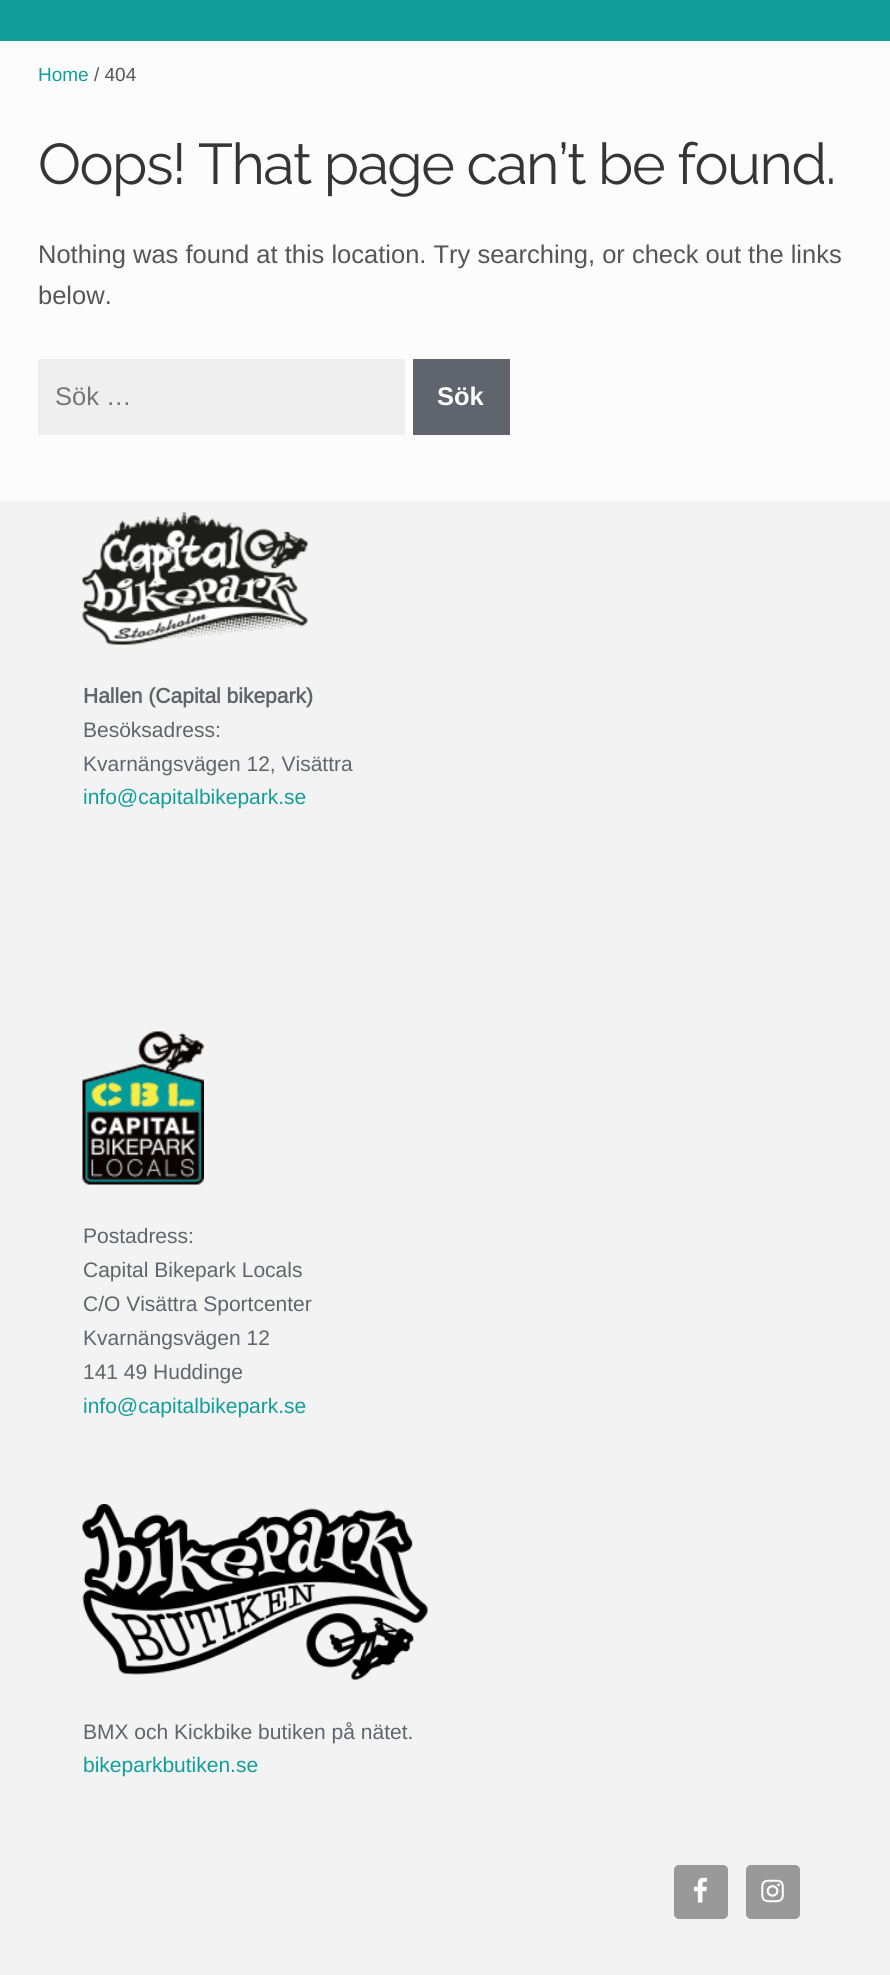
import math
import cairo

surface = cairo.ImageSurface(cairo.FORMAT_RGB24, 890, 1975)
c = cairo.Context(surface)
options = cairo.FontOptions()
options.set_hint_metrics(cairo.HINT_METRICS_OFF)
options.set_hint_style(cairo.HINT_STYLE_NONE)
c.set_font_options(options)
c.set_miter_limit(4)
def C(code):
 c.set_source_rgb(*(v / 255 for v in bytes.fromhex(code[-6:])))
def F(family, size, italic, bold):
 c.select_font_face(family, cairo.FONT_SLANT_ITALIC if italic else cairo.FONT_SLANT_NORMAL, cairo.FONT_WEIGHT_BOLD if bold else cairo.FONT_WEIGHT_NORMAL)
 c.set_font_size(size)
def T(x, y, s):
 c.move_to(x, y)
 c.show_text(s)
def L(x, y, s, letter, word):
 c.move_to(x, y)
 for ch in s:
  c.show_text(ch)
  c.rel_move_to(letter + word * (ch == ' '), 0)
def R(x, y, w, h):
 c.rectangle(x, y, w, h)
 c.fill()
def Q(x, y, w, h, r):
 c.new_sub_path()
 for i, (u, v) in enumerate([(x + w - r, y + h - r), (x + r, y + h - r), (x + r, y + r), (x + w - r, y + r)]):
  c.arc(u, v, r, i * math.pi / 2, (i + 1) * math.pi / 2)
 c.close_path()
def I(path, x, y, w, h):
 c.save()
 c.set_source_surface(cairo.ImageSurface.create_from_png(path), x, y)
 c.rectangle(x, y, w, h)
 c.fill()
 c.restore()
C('fcfcfc')
c.paint()
C('119e9a')
R(0,0,890,41)
F('Arimo',19,0,0)
T(38,81,'Home')
C('565656')
T(94,81,'/ 404')
F('Raleway Thin',57.25,0,0)
C('353535')
L(38,184,'Oops! That page can’t be found.',-1.5,0)
F('Arimo',25.5,0,0)
C('565656')
T(38,263,'Nothing was found at this location. Try searching, or check out the links')
T(38,304,'below.')
C('efefef')
R(38,359,367,76)
F('Liberation Sans',25.5,0,0)
C('757575')
T(55,405,'Sök …')
C('60646c')
R(413,359,97,76)
F('Liberation Sans',25.5,0,1)
C('ffffff')
T(437,405,'Sök')
C('f3f3f3')
R(0,501,890,1474)
I('1.png',82,512,226,133)
F('Arimo',21,0,1)
C('61656b')
T(83,703,'Hallen (Capital bikepark)')
F('Arimo',21,0,0)
T(83,737,'Besöksadress:')
T(83,771,'Kvarnängsvägen 12, Visättra')
C('119e9a')
T(83,804,'info@capitalbikepark.se')
I('2.png',82,1031,122,154)
C('61656b')
T(83,1243,'Postadress:')
T(83,1277,'Capital Bikepark Locals')
T(83,1311,'C/O Visättra Sportcenter')
T(83,1345,'Kvarnängsvägen 12')
T(83,1379,'141 49 Huddinge')
C('119e9a')
T(83,1413,'info@capitalbikepark.se')
I('3.png',82,1504,346,176)
C('61656b')
T(83,1739,'BMX och Kickbike butiken på nätet.')
C('119e9a')
T(83,1772,'bikeparkbutiken.se')
C('999999')
Q(674,1865,54,54,5)
c.fill()
I('4.png',694,1877,13,26)
Q(746,1865,54,54,5)
c.fill()
I('5.png',761,1879,23,24)
surface.write_to_png('o.png')
